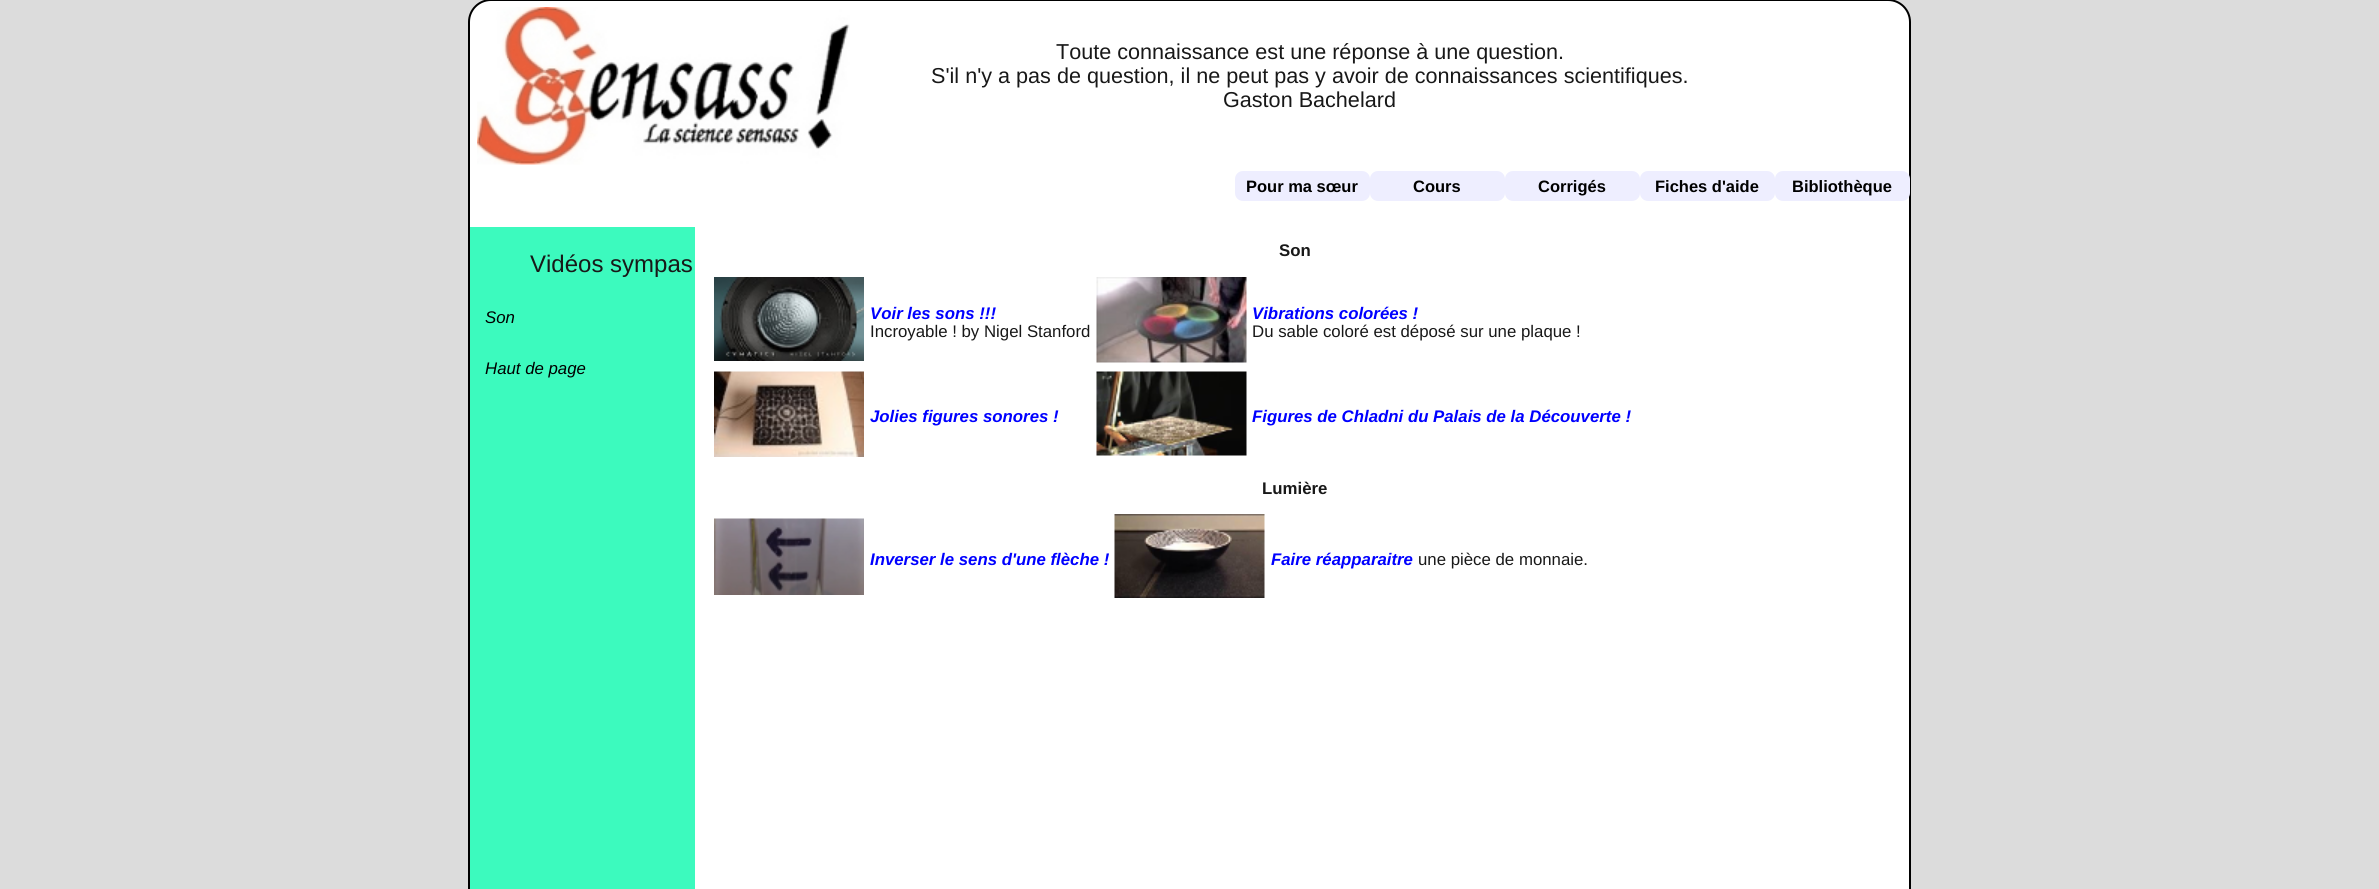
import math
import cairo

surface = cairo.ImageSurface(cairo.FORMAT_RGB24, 2379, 889)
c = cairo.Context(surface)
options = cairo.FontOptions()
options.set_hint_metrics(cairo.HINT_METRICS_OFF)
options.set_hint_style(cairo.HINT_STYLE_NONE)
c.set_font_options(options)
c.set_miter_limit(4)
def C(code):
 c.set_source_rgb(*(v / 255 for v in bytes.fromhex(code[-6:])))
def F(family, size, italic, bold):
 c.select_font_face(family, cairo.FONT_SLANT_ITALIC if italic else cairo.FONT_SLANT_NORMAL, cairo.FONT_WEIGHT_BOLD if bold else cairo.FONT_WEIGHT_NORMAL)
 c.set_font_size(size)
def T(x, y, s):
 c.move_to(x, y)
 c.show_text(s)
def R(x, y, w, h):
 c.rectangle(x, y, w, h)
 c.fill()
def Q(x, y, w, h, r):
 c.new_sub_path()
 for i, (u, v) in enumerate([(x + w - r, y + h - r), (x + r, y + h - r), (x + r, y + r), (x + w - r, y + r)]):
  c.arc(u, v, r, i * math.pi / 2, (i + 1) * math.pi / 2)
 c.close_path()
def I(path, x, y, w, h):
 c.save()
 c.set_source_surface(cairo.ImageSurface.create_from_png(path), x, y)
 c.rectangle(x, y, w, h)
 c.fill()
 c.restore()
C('dcdcdc')
c.paint()
C('ffffff')
Q(469,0,1441,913,22)
c.fill_preserve()
C('000000')
c.stroke()
I('1.png',477,7,373,158)
F('Liberation Sans',21.6,0,0)
C('181818')
T(1056,59,'Toute connaissance est une réponse à une question.')
T(931,83,'S\'il n\'y a pas de question, il ne peut pas y avoir de connaissances scientifiques.')
T(1223,107,'Gaston Bachelard')
C('eeeeff')
Q(1235,171,135,30,8)
c.fill()
F('Liberation Sans',16.5,0,1)
C('000000')
T(1246,192,'Pour ma sœur')
C('eeeeff')
Q(1370,171,135,30,8)
c.fill()
C('000000')
T(1413,192,'Cours')
C('eeeeff')
Q(1505,171,135,30,8)
c.fill()
C('000000')
T(1538,192,'Corrigés')
C('eeeeff')
Q(1640,171,135,30,8)
c.fill()
C('000000')
T(1655,192,'Fiches d\'aide')
C('eeeeff')
Q(1775,171,135,30,8)
c.fill()
C('000000')
T(1792,192,'Bibliothèque')
C('3cfabe')
R(470,227,225,662)
F('Liberation Sans',24,0,0)
C('181818')
T(530,272,'Vidéos sympas')
F('Liberation Sans',16.8,1,0)
C('000000')
T(485,323,'Son')
T(485,374,'Haut de page')
F('Liberation Sans',16.8,0,1)
C('181818')
T(1279,256,'Son')
I('2.png',714,277,150,84)
F('Liberation Sans',16.8,1,1)
C('0000ff')
T(870,319,'Voir les sons !!!')
F('Liberation Sans',16.8,0,0)
C('181818')
T(870,337,'Incroyable ! by Nigel Stanford')
I('3.png',1096,277,151,86)
F('Liberation Sans',16.8,1,1)
C('0000ff')
T(1252,319,'Vibrations colorées !')
F('Liberation Sans',16.8,0,0)
C('181818')
T(1252,337,'Du sable coloré est déposé sur une plaque !')
I('4.png',714,371,150,86)
F('Liberation Sans',16.8,1,1)
C('0000ff')
T(870,422,'Jolies figures sonores !')
I('5.png',1096,371,151,85)
T(1252,422,'Figures de Chladni du Palais de la Découverte !')
F('Liberation Sans',16.8,0,1)
C('181818')
T(1262,494,'Lumière')
I('6.png',714,518,150,77)
F('Liberation Sans',16.8,1,1)
C('0000ff')
T(870,565,'Inverser le sens d\'une flèche !')
I('7.png',1114,514,151,84)
T(1271,565,'Faire réapparaitre')
F('Liberation Sans',16.8,0,0)
C('181818')
T(1418,565,'une pièce de monnaie.')
surface.write_to_png('o.png')
